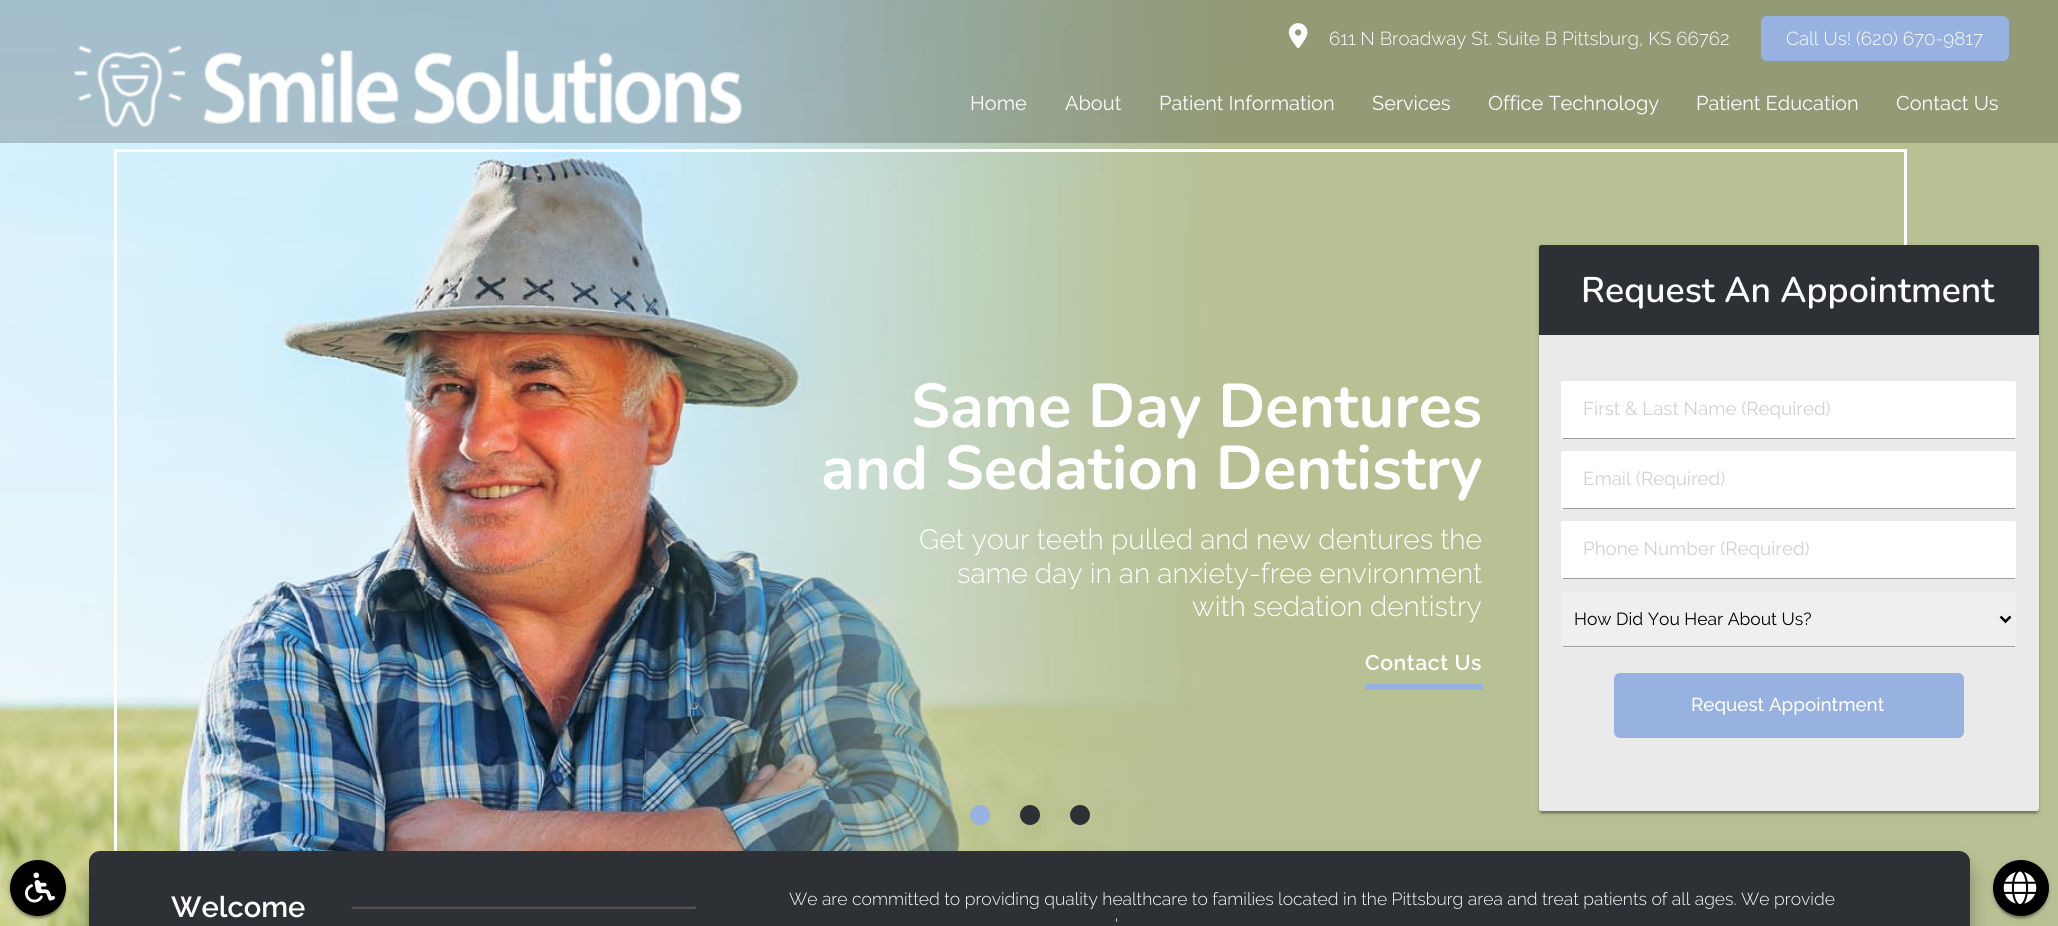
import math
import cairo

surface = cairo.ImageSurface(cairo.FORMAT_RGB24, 2058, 926)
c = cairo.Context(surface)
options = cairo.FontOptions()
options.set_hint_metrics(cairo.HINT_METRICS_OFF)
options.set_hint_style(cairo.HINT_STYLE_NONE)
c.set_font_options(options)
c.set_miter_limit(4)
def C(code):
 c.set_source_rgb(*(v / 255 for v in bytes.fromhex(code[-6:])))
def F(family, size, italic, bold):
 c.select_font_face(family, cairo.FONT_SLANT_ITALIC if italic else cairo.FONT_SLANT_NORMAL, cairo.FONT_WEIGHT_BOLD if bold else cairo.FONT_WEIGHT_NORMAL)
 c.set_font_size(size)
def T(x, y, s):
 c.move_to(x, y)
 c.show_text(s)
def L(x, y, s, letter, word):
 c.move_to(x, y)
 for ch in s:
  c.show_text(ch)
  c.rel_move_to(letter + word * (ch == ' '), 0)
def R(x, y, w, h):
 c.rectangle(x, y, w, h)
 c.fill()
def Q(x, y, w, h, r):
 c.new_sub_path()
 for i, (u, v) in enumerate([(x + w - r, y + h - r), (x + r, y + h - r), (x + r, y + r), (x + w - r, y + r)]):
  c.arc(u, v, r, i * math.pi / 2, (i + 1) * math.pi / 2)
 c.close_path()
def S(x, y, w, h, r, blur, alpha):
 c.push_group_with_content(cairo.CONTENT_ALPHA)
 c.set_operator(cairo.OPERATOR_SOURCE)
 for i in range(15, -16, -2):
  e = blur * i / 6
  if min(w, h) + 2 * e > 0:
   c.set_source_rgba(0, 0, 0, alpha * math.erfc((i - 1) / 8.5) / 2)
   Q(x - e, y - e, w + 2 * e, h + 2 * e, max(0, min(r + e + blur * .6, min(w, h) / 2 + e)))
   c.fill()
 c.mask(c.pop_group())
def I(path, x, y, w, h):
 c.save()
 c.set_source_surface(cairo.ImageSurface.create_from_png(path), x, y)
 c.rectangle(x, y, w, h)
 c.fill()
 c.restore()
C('ffffff')
c.paint()
I('4.png',0,0,2058,926)
c.set_source_rgba(0,0,0,0.2)
R(0,0,2058,143)
I('1.png',1288,23,20,25)
F('Raleway Light',18.75,0,0)
C('ffffff')
T(1329,45,'611 N Broadway St. Suite B Pittsburg, KS 66762')
C('97b1e1')
Q(1761,16,248,45,6)
c.fill()
C('ffffff')
T(1786,45,'Call Us! (620) 670-9817')
I('2.png',73,45,670,83)
F('Raleway',20,0,0)
T(970,110,'Home')
T(1065,110,'About')
T(1159,110,'Patient Information')
T(1372,110,'Services')
T(1488,110,'Office Technology')
T(1696,110,'Patient Education')
T(1896,110,'Contact Us')
C('000000')
S(13,866,51,52,25.5,.5,.2)
S(10,861,56,57,28,3,.12)
S(10,863,56,56,28,1,.14)
C('ffffff')
R(114,149,1790,3)
R(114,149,3,702)
C('000000')
S(89,866,1881,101,11,10,.32)
C('000000')
c.arc(38,888,28,0,2 * math.pi)
c.fill()
I('3.png',25,872,30,31)
C('ffffff')
R(1904,149,3,99)
F('Nunito',61.75,0,1)
T(911,427,'Same Day Dentures')
T(821,489,'and Sedation Dentistry')
F('Raleway Light',28.1,0,0)
T(919,549,'Get your teeth pulled and new dentures the')
T(957,583,'same day in an anxiety-free environment')
T(1192,616,'with sedation dentistry')
F('Raleway SemiBold',21.25,0,0)
L(1365,670,'Contact Us',.6,0)
C('97b1e1')
R(1365,684,118,6)
C('000000')
S(1541,251,495,562,0,.5,.2)
S(1539,246,500,567,2.5,3,.12)
S(1539,248,500,566,2.5,1,.14)
C('eaeaea')
Q(1539,245,500,566,2.5)
c.fill()
C('2d3136')
c.new_path()
c.move_to(1541.5,245)
c.line_to(2036.5,245)
c.curve_to(2038,245,2039,246,2039,247.5)
c.line_to(2039,335)
c.line_to(1539,335)
c.line_to(1539,247.5)
c.curve_to(1539,246,1540,245,1541.5,245)
c.close_path()
c.fill()
F('Nunito SemiBold',35.6,0,0)
C('ffffff')
T(1581,302,'Request An Appointment')
Q(1561,381,455,58,2.5)
c.fill()
C('9e9e9e')
R(1563,438,452,1)
F('Raleway',18.75,0,0)
C('d1d1d1')
T(1583,415,'First & Last Name (Required)')
C('ffffff')
Q(1561,451,455,58,2.5)
c.fill()
C('9e9e9e')
R(1563,508,452,1)
C('d1d1d1')
T(1583,485,'Email (Required)')
C('ffffff')
Q(1561,521,455,58,2.5)
c.fill()
C('9e9e9e')
R(1563,578,452,1)
C('d1d1d1')
T(1583,555,'Phone Number (Required)')
C('efefef')
Q(1561,591,455,57,2.5)
c.fill()
C('9e9e9e')
R(1563,646,452,1)
c.new_path()
c.move_to(2000.5,616.5)
c.line_to(2005.5,621.5)
c.line_to(2010.5,616.5)
C('000000')
c.set_line_width(2.5)
c.stroke()
F('Raleway',17.5,0,0)
T(1574,625,'How Did You Hear About Us?')
C('97b1e1')
Q(1614,673,350,65,6)
c.fill()
F('Raleway Medium',18.75,0,0)
C('ffffff')
T(1691,711,'Request Appointment')
C('97b1e1')
c.new_path()
c.arc(980,815,10,0,2 * math.pi)
c.fill()
C('2d3136')
c.arc(1030,815,10,0,2 * math.pi)
c.fill()
c.arc(1080,815,10,0,2 * math.pi)
c.fill()
Q(89,851,1881,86,11)
c.fill()
F('Raleway SemiBold',29,0,0)
C('ffffff')
T(171,917,'Welcome')
C('545454')
R(351,907,345,2)
C('383838')
R(351,906,345,1)
C('545454')
R(695,906,1,3)
C('383838')
R(351,906,1,3)
F('Raleway Light',17.5,0,0)
C('ffffff')
T(789,905,'We are committed to providing quality healthcare to families located in the Pittsburg area and treat patients of all ages. We provide')
T(1115,931,'\'')
C('000000')
S(1995,866,51,52,25.5,.5,.2)
S(1993,861,56,57,28,3,.12)
S(1993,863,56,56,28,1,.14)
C('000000')
c.arc(2021,888,28,0,2 * math.pi)
c.fill()
I('5.png',2003,871,34,33)
surface.write_to_png('o.png')
